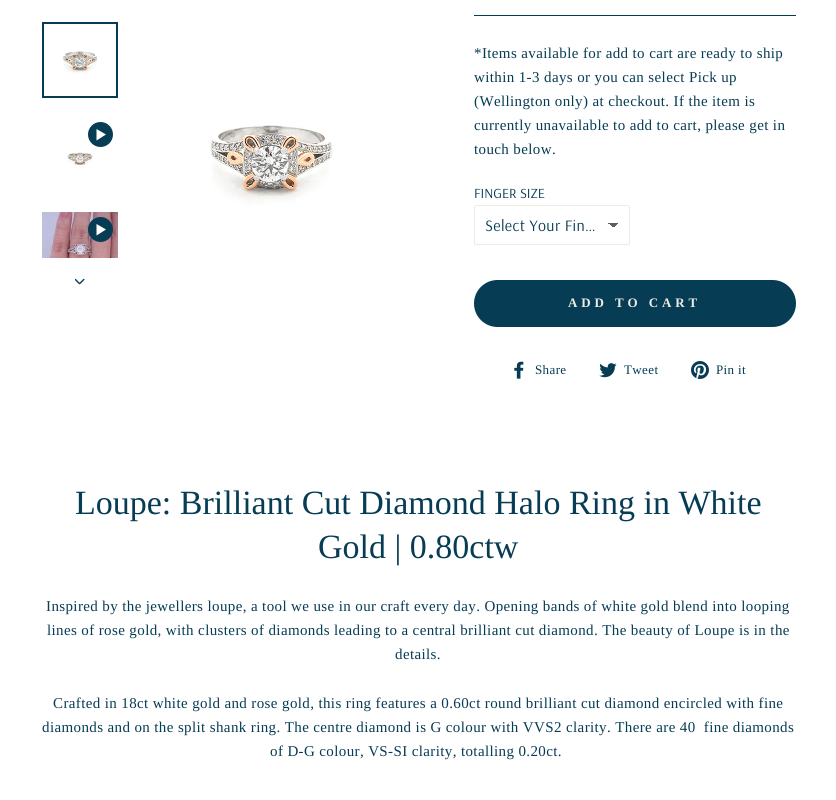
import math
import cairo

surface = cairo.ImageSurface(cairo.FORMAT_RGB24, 836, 800)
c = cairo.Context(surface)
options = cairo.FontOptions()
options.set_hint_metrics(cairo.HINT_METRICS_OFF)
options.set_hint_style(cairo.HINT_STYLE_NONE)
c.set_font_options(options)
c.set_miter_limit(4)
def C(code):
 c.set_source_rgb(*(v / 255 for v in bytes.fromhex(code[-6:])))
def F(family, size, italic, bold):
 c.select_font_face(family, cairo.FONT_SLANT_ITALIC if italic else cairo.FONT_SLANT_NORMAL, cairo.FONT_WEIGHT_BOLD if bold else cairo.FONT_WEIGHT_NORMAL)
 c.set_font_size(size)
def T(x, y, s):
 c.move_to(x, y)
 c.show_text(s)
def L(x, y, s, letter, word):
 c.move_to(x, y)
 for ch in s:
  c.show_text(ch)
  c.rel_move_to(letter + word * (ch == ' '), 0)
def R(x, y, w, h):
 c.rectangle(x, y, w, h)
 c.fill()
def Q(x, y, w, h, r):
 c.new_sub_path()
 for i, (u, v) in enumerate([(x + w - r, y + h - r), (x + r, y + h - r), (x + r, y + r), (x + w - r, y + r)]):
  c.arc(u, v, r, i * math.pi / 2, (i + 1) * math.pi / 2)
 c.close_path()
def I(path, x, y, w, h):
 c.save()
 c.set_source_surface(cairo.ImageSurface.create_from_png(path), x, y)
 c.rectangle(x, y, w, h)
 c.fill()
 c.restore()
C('ffffff')
c.paint()
I('1.png',63,51,34,23)
c.rectangle(43,23,74,74)
C('063c54')
c.stroke()
c.arc(100.5,134.5,12.5,0,2 * math.pi)
c.fill()
C('ffffff')
c.new_path()
c.move_to(96.5,129)
c.line_to(96.5,140.5)
c.line_to(106,134.5)
c.close_path()
c.fill()
I('2.png',67,152,26,13)
I('3.png',42,212,76,46)
C('063c54')
c.arc(100.5,229.5,12.5,0,2 * math.pi)
c.fill()
C('ffffff')
c.new_path()
c.move_to(96.5,224)
c.line_to(96.5,235.5)
c.line_to(106,229.5)
c.close_path()
c.fill()
I('4.png',75,278,10,7)
I('5.png',210,125,123,81)
C('063c54')
R(474,15,322,1)
F('Liberation Serif',15,0,0)
L(474,58,'*Items available for add to cart are ready to ship',.38,0)
L(474,82,'within 1-3 days or you can select Pick up',.38,0)
L(474,106,'(Wellington only) at checkout. If the item is',.38,0)
L(474,130,'currently unavailable to add to cart, please get in',.38,0)
L(474,154,'touch below.',.38,0)
F('Arsenal',14,0,0)
T(474,198,'FINGER SIZE')
Q(474.5,205.5,155,39,1.5)
C('edebe3')
c.set_line_width(1)
c.stroke()
gradient = cairo.LinearGradient(613,223,618,228)
gradient.add_color_stop_rgba(.5,0.361,0.373,0.384,1)
gradient.add_color_stop_rgba(.5,1,1,1,1)
c.set_source(gradient)
R(613,223,5,4)
gradient = cairo.LinearGradient(608,228,613,223)
gradient.add_color_stop_rgba(.5,1,1,1,1)
gradient.add_color_stop_rgba(.5,0.361,0.373,0.384,1)
c.set_source(gradient)
R(608,223,5,4)
F('Arsenal',16,0,0)
C('063c54')
L(485,231,'Select Your Fin…',.4,0)
Q(474,280,322,47,23.5)
c.fill()
F('Liberation Serif',13,0,1)
C('edebe3')
L(568,307,'ADD TO CART',3.9,0)
I('6.png',514,361,10,18)
F('Liberation Serif',13,0,0)
C('063c54')
L(535,374,'Share',.38,0)
I('7.png',599,363,18,15)
L(624,374,'Tweet',.38,0)
I('8.png',691,361,18,18)
L(716,374,'Pin it',.38,0)
F('Liberation Serif',34,0,0)
T(75,514,'Loupe: Brilliant Cut Diamond Halo Ring in White')
T(318,558,'Gold | 0.80ctw')
F('Liberation Serif',15,0,0)
L(46,611,'Inspired by the jewellers loupe, a tool we use in our craft every day. Opening bands of white gold blend into looping',.38,0)
L(47,635,'lines of rose gold, with clusters of diamonds leading to a central brilliant cut diamond. The beauty of Loupe is in the',.38,0)
L(395,659,'details.',.38,0)
L(53,708,'Crafted in 18ct white gold and rose gold, this ring features a 0.60ct round brilliant cut diamond encircled with fine',.38,0)
L(42,732,'diamonds and on the split shank ring. The centre diamond is G colour with VVS2 clarity. There are 40  fine diamonds',.38,0)
L(270,756,'of D-G colour, VS-SI clarity, totalling 0.20ct.',.38,0)
surface.write_to_png('o.png')
